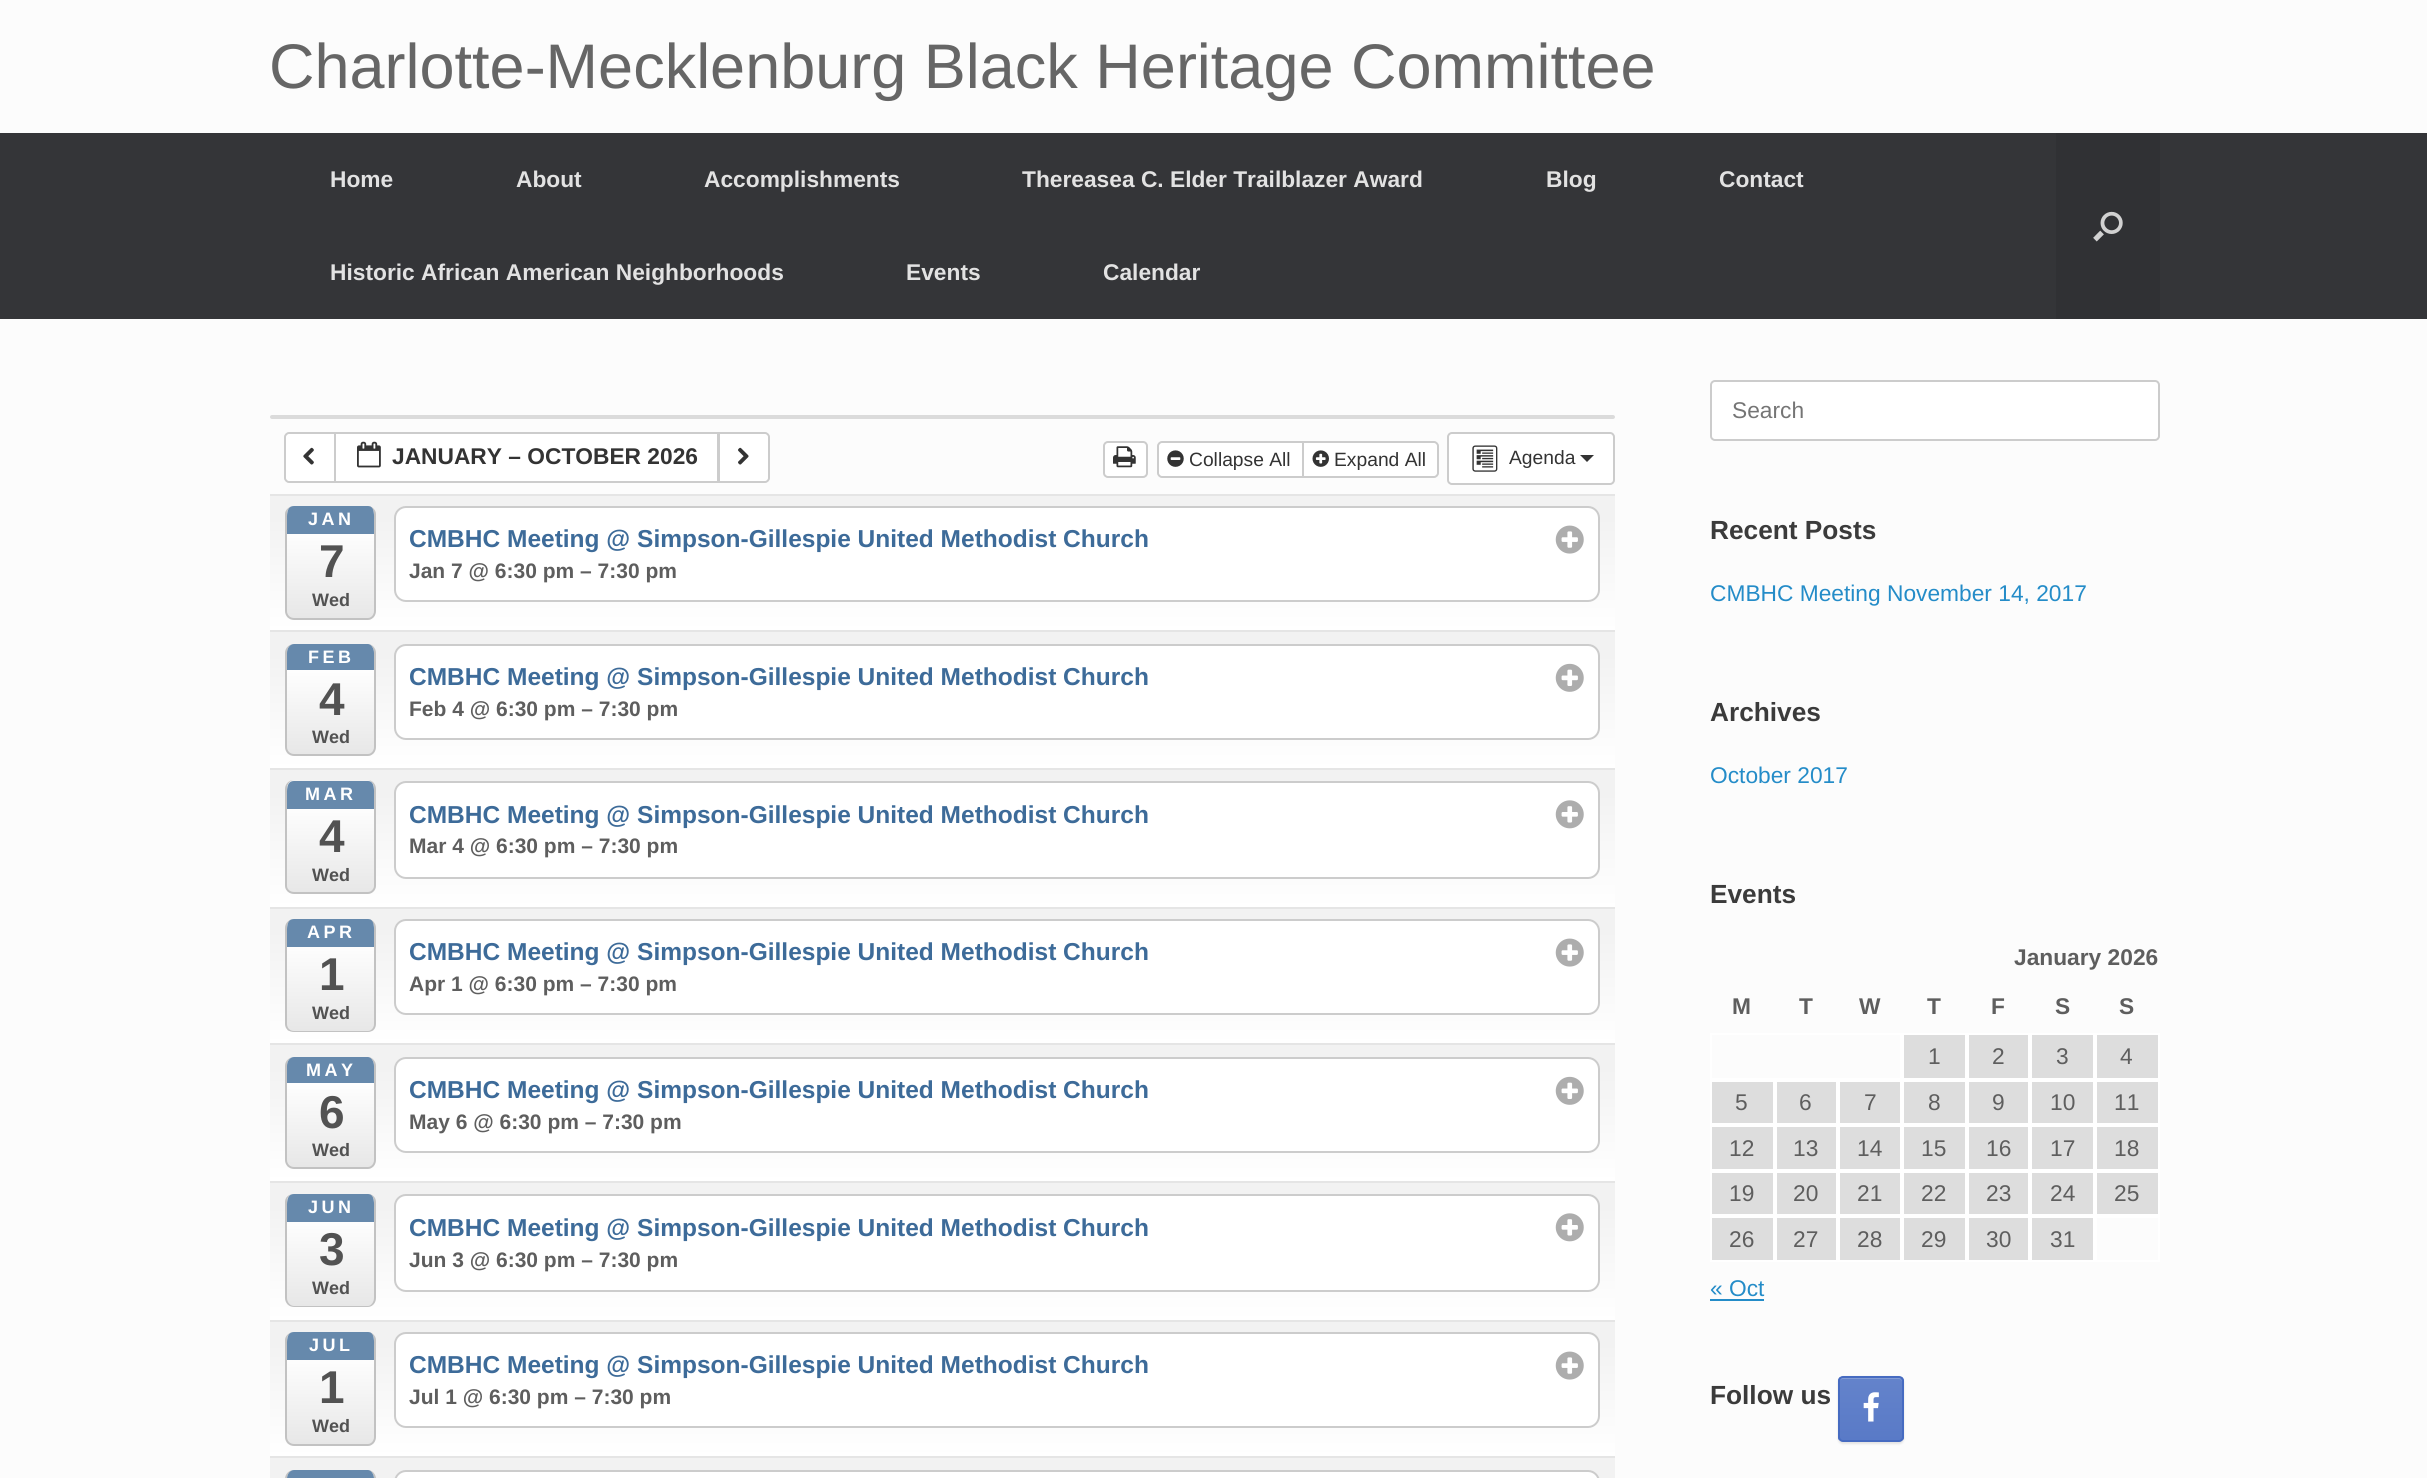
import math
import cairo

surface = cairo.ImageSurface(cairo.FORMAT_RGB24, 2427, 1478)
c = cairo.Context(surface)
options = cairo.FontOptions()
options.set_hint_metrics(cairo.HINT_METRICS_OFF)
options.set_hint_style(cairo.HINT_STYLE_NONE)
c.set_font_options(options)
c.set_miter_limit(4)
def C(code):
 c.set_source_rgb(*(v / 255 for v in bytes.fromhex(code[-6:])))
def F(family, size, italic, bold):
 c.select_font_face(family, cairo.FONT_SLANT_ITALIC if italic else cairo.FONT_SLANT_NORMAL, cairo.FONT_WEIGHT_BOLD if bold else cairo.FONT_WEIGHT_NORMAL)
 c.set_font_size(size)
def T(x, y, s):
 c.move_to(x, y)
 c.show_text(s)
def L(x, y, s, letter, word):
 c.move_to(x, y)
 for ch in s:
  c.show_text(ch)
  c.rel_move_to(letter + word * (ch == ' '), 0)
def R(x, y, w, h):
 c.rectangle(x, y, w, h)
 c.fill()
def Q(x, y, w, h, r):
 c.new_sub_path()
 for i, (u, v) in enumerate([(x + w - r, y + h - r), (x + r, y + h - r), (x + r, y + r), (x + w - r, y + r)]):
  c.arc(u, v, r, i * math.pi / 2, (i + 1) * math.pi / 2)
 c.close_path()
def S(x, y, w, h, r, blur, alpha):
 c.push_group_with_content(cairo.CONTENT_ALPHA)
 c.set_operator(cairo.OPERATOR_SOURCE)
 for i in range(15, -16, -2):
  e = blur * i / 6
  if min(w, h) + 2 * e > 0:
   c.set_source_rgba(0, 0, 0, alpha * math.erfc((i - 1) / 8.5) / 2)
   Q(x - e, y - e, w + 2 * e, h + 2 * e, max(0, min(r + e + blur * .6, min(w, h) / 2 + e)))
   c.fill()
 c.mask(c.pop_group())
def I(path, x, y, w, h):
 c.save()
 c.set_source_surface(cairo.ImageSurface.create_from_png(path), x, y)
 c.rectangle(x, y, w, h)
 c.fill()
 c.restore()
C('fcfcfc')
c.paint()
F('Liberation Sans',63,0,0)
C('666666')
T(269,88,'Charlotte-Mecklenburg Black Heritage Committee')
C('343538')
R(0,133,2427,186)
F('Liberation Sans',22.75,0,1)
C('e2e2e2')
T(330,187,'Home')
T(516,187,'About')
T(704,187,'Accomplishments')
T(1022,187,'Thereasea C. Elder Trailblazer Award')
T(1546,187,'Blog')
T(1719,187,'Contact')
T(330,280,'Historic African American Neighborhoods')
T(906,280,'Events')
T(1103,280,'Calendar')
C('303134')
R(2056,133,104,186)
I('1.png',2093,211,30,31)
C('dbdbdb')
Q(270,415,1345,4,2)
c.fill()
C('ffffff')
c.new_path()
c.move_to(289,433)
c.line_to(335,433)
c.line_to(335,482)
c.line_to(289,482)
c.curve_to(287,482,285,480,285,478)
c.line_to(285,437)
c.curve_to(285,435,287,433,289,433)
c.close_path()
c.fill_preserve()
C('cccccc')
c.stroke()
I('2.png',303,447,11,18)
C('ffffff')
c.rectangle(335,433,383,49)
c.fill_preserve()
C('cccccc')
c.stroke()
I('3.png',357,441,24,27)
C('333333')
T(392,464,'JANUARY – OCTOBER 2026')
C('ffffff')
c.new_path()
c.move_to(719,433)
c.line_to(765,433)
c.curve_to(767,433,769,435,769,437)
c.line_to(769,478)
c.curve_to(769,480,767,482,765,482)
c.line_to(719,482)
c.close_path()
c.fill_preserve()
C('cccccc')
c.stroke()
I('4.png',738,447,11,18)
C('ffffff')
Q(1104,442,43,35,4)
c.fill_preserve()
C('cccccc')
c.stroke()
I('5.png',1113,446,23,22)
C('ffffff')
c.new_path()
c.move_to(1162,442)
c.line_to(1303,442)
c.line_to(1303,477)
c.line_to(1162,477)
c.curve_to(1160,477,1158,475,1158,473)
c.line_to(1158,446)
c.curve_to(1158,444,1160,442,1162,442)
c.close_path()
c.fill_preserve()
C('cccccc')
c.stroke()
I('6.png',1167,450,17,17)
F('Liberation Sans',19.25,0,0)
C('333333')
T(1189,466,'Collapse All')
C('ffffff')
c.new_path()
c.move_to(1303,442)
c.line_to(1434,442)
c.curve_to(1436,442,1438,444,1438,446)
c.line_to(1438,473)
c.curve_to(1438,475,1436,477,1434,477)
c.line_to(1303,477)
c.close_path()
c.fill_preserve()
C('cccccc')
c.stroke()
I('7.png',1312,450,17,17)
C('333333')
T(1334,466,'Expand All')
C('ffffff')
Q(1448,433,166,51,4)
c.fill_preserve()
C('cccccc')
c.stroke()
I('8.png',1472,445,26,27)
C('333333')
T(1509,464,'Agenda')
c.new_path()
c.move_to(1580,455)
c.line_to(1594,455)
c.line_to(1587,462)
c.close_path()
c.fill()
gradient = cairo.LinearGradient(942,495,942,630)
gradient.add_color_stop_rgba(0,0.949,0.949,0.949,1)
gradient.add_color_stop_rgba(.17,0.949,0.949,0.949,1)
gradient.add_color_stop_rgba(1,1,1,1,1)
c.set_source(gradient)
R(270,496,1345,134)
C('e5e5e5')
R(270,494,1345,2)
c.save()
Q(285,506,91,114,9)
c.clip()
gradient = cairo.LinearGradient(331,506,331,618)
gradient.add_color_stop_rgba(0,1,1,1,1)
gradient.add_color_stop_rgba(.2,1,1,1,1)
gradient.add_color_stop_rgba(1,0.906,0.906,0.906,1)
c.set_source(gradient)
R(287,506,88,112)
c.restore()
C('c2c2c2')
c.set_fill_rule(cairo.FILL_RULE_EVEN_ODD)
c.new_path()
c.move_to(294,506)
c.line_to(368,506)
c.curve_to(372,506,376,510,376,514)
c.line_to(376,611)
c.curve_to(376,616,372,620,368,620)
c.line_to(294,620)
c.curve_to(289,620,285,616,285,611)
c.line_to(285,514)
c.curve_to(285,510,289,506,294,506)
c.close_path()
c.move_to(294,506)
c.line_to(368,506)
c.curve_to(371,506,374,510,374,514)
c.line_to(374,611)
c.curve_to(374,615,371,618,368,618)
c.line_to(294,618)
c.curve_to(290,618,287,615,287,611)
c.line_to(287,514)
c.curve_to(287,510,290,506,294,506)
c.close_path()
c.fill()
C('6689ac')
c.set_fill_rule(cairo.FILL_RULE_WINDING)
c.new_path()
c.move_to(294,506)
c.curve_to(286,506,287,516,287,521)
c.line_to(287,534)
c.line_to(374,534)
c.line_to(374,521)
c.curve_to(374,516,375,506,368,506)
c.close_path()
c.fill()
F('Liberation Sans',18,0,1)
C('ffffff')
L(308,525,'JAN',3.5,0)
F('Liberation Sans',46,0,1)
C('525252')
T(319,577,'7')
F('Liberation Sans',18,0,1)
T(312,606,'Wed')
C('ffffff')
Q(395,507,1204,94,11)
c.fill_preserve()
C('cccccc')
c.stroke()
F('Liberation Sans',24.5,0,1)
C('3d6b99')
T(409,547,'CMBHC Meeting @ Simpson-Gillespie United Methodist Church')
I('9.png',1555,525,29,29)
F('Liberation Sans',21,0,1)
C('5e5e5e')
T(409,578,'Jan 7 @ 6:30 pm – 7:30 pm')
gradient = cairo.LinearGradient(942,632,942,768)
gradient.add_color_stop_rgba(0,0.949,0.949,0.949,1)
gradient.add_color_stop_rgba(.17,0.949,0.949,0.949,1)
gradient.add_color_stop_rgba(1,1,1,1,1)
c.set_source(gradient)
R(270,632,1345,136)
C('e5e5e5')
R(270,630,1345,2)
c.save()
Q(285,644,91,112,9)
c.clip()
gradient = cairo.LinearGradient(331,644,331,754)
gradient.add_color_stop_rgba(0,1,1,1,1)
gradient.add_color_stop_rgba(.21,1,1,1,1)
gradient.add_color_stop_rgba(1,0.906,0.906,0.906,1)
c.set_source(gradient)
R(287,644,88,110)
c.restore()
C('c2c2c2')
c.set_fill_rule(cairo.FILL_RULE_EVEN_ODD)
c.new_path()
c.move_to(294,644)
c.line_to(368,644)
c.curve_to(372,644,376,648,376,653)
c.line_to(376,747)
c.curve_to(376,752,372,756,368,756)
c.line_to(294,756)
c.curve_to(289,756,285,752,285,747)
c.line_to(285,653)
c.curve_to(285,648,289,644,294,644)
c.close_path()
c.move_to(294,644)
c.line_to(368,644)
c.curve_to(371,644,374,648,374,653)
c.line_to(374,747)
c.curve_to(374,751,371,754,368,754)
c.line_to(294,754)
c.curve_to(290,754,287,751,287,747)
c.line_to(287,653)
c.curve_to(287,648,290,644,294,644)
c.close_path()
c.fill()
C('6689ac')
c.set_fill_rule(cairo.FILL_RULE_WINDING)
c.new_path()
c.move_to(294,644)
c.curve_to(290,644,287,648,287,653)
c.line_to(287,670)
c.line_to(374,670)
c.line_to(374,653)
c.curve_to(374,648,371,644,368,644)
c.close_path()
c.fill()
F('Liberation Sans',18,0,1)
C('ffffff')
L(308,663,'FEB',3.5,0)
F('Liberation Sans',46,0,1)
C('525252')
T(319,715,'4')
F('Liberation Sans',18,0,1)
T(312,743,'Wed')
C('ffffff')
Q(395,645,1204,94,11)
c.fill_preserve()
C('cccccc')
c.stroke()
F('Liberation Sans',24.5,0,1)
C('3d6b99')
T(409,685,'CMBHC Meeting @ Simpson-Gillespie United Methodist Church')
I('10.png',1555,663,29,29)
F('Liberation Sans',21,0,1)
C('5e5e5e')
T(409,716,'Feb 4 @ 6:30 pm – 7:30 pm')
gradient = cairo.LinearGradient(942,770,942,907)
gradient.add_color_stop_rgba(0,0.949,0.949,0.949,1)
gradient.add_color_stop_rgba(.17,0.949,0.949,0.949,1)
gradient.add_color_stop_rgba(1,1,1,1,1)
c.set_source(gradient)
R(270,770,1345,137)
C('e5e5e5')
R(270,768,1345,2)
c.save()
Q(285,781,91,113,9)
c.clip()
gradient = cairo.LinearGradient(331,781,331,893)
gradient.add_color_stop_rgba(0,1,1,1,1)
gradient.add_color_stop_rgba(.2,1,1,1,1)
gradient.add_color_stop_rgba(1,0.906,0.906,0.906,1)
c.set_source(gradient)
R(287,781,88,112)
c.restore()
C('c2c2c2')
c.set_fill_rule(cairo.FILL_RULE_EVEN_ODD)
c.new_path()
c.move_to(294,780)
c.line_to(368,780)
c.curve_to(372,780,376,784,376,789)
c.line_to(376,886)
c.curve_to(376,890,372,894,368,894)
c.line_to(294,894)
c.curve_to(289,894,285,890,285,886)
c.line_to(285,789)
c.curve_to(285,784,289,780,294,780)
c.close_path()
c.move_to(294,780)
c.line_to(368,780)
c.curve_to(371,780,374,784,374,789)
c.line_to(374,886)
c.curve_to(374,889,371,892,368,892)
c.line_to(294,892)
c.curve_to(290,892,287,889,287,886)
c.line_to(287,789)
c.curve_to(287,784,290,780,294,780)
c.close_path()
c.fill()
C('6689ac')
c.set_fill_rule(cairo.FILL_RULE_WINDING)
c.new_path()
c.move_to(294,781)
c.curve_to(286,781,287,791,287,796)
c.line_to(287,809)
c.line_to(374,809)
c.line_to(374,796)
c.curve_to(374,791,375,781,368,781)
c.close_path()
c.fill()
F('Liberation Sans',18,0,1)
C('ffffff')
L(305,800,'MAR',3.5,0)
F('Liberation Sans',46,0,1)
C('525252')
T(319,852,'4')
F('Liberation Sans',18,0,1)
T(312,881,'Wed')
C('ffffff')
Q(395,782,1204,96,11)
c.fill_preserve()
C('cccccc')
c.stroke()
F('Liberation Sans',24.5,0,1)
C('3d6b99')
T(409,823,'CMBHC Meeting @ Simpson-Gillespie United Methodist Church')
I('11.png',1555,800,29,29)
F('Liberation Sans',21,0,1)
C('5e5e5e')
T(409,853,'Mar 4 @ 6:30 pm – 7:30 pm')
gradient = cairo.LinearGradient(942,908,942,1043)
gradient.add_color_stop_rgba(0,0.949,0.949,0.949,1)
gradient.add_color_stop_rgba(.17,0.949,0.949,0.949,1)
gradient.add_color_stop_rgba(1,1,1,1,1)
c.set_source(gradient)
R(270,909,1345,134)
C('e5e5e5')
R(270,907,1345,2)
c.save()
Q(285,919,91,114,9)
c.clip()
gradient = cairo.LinearGradient(331,919,331,1031)
gradient.add_color_stop_rgba(0,1,1,1,1)
gradient.add_color_stop_rgba(.2,1,1,1,1)
gradient.add_color_stop_rgba(1,0.906,0.906,0.906,1)
c.set_source(gradient)
R(287,919,88,112)
c.restore()
C('c2c2c2')
c.set_fill_rule(cairo.FILL_RULE_EVEN_ODD)
c.new_path()
c.move_to(294,919)
c.line_to(368,919)
c.curve_to(372,919,376,923,376,928)
c.line_to(376,1024)
c.curve_to(376,1029,372,1032,368,1032)
c.line_to(294,1032)
c.curve_to(289,1032,285,1029,285,1024)
c.line_to(285,928)
c.curve_to(285,923,289,919,294,919)
c.close_path()
c.move_to(294,919)
c.line_to(368,919)
c.curve_to(371,919,374,923,374,928)
c.line_to(374,1024)
c.curve_to(374,1028,371,1031,368,1031)
c.line_to(294,1031)
c.curve_to(290,1031,287,1028,287,1024)
c.line_to(287,928)
c.curve_to(287,923,290,919,294,919)
c.close_path()
c.fill()
C('6689ac')
c.set_fill_rule(cairo.FILL_RULE_WINDING)
c.new_path()
c.move_to(294,919)
c.curve_to(286,919,287,929,287,934)
c.line_to(287,947)
c.line_to(374,947)
c.line_to(374,934)
c.curve_to(374,929,375,919,368,919)
c.close_path()
c.fill()
F('Liberation Sans',18,0,1)
C('ffffff')
L(307,938,'APR',3.5,0)
F('Liberation Sans',46,0,1)
C('525252')
T(319,990,'1')
F('Liberation Sans',18,0,1)
T(312,1019,'Wed')
C('ffffff')
Q(395,920,1204,94,11)
c.fill_preserve()
C('cccccc')
c.stroke()
F('Liberation Sans',24.5,0,1)
C('3d6b99')
T(409,960,'CMBHC Meeting @ Simpson-Gillespie United Methodist Church')
I('9.png',1555,938,29,29)
F('Liberation Sans',21,0,1)
C('5e5e5e')
T(409,991,'Apr 1 @ 6:30 pm – 7:30 pm')
gradient = cairo.LinearGradient(942,1045,942,1181)
gradient.add_color_stop_rgba(0,0.949,0.949,0.949,1)
gradient.add_color_stop_rgba(.17,0.949,0.949,0.949,1)
gradient.add_color_stop_rgba(1,1,1,1,1)
c.set_source(gradient)
R(270,1045,1345,136)
C('e5e5e5')
R(270,1043,1345,2)
c.save()
Q(285,1057,91,112,9)
c.clip()
gradient = cairo.LinearGradient(331,1057,331,1167)
gradient.add_color_stop_rgba(0,1,1,1,1)
gradient.add_color_stop_rgba(.21,1,1,1,1)
gradient.add_color_stop_rgba(1,0.906,0.906,0.906,1)
c.set_source(gradient)
R(287,1057,88,110)
c.restore()
C('c2c2c2')
c.set_fill_rule(cairo.FILL_RULE_EVEN_ODD)
c.new_path()
c.move_to(294,1057)
c.line_to(368,1057)
c.curve_to(372,1057,376,1061,376,1066)
c.line_to(376,1160)
c.curve_to(376,1165,372,1169,368,1169)
c.line_to(294,1169)
c.curve_to(289,1169,285,1165,285,1160)
c.line_to(285,1066)
c.curve_to(285,1061,289,1057,294,1057)
c.close_path()
c.move_to(294,1057)
c.line_to(368,1057)
c.curve_to(371,1057,374,1061,374,1066)
c.line_to(374,1160)
c.curve_to(374,1164,371,1167,368,1167)
c.line_to(294,1167)
c.curve_to(290,1167,287,1164,287,1160)
c.line_to(287,1066)
c.curve_to(287,1061,290,1057,294,1057)
c.close_path()
c.fill()
C('6689ac')
c.set_fill_rule(cairo.FILL_RULE_WINDING)
c.new_path()
c.move_to(294,1057)
c.curve_to(290,1057,287,1061,287,1066)
c.line_to(287,1083)
c.line_to(374,1083)
c.line_to(374,1066)
c.curve_to(374,1061,371,1057,368,1057)
c.close_path()
c.fill()
F('Liberation Sans',18,0,1)
C('ffffff')
L(306,1076,'MAY',3.5,0)
F('Liberation Sans',46,0,1)
C('525252')
T(319,1128,'6')
F('Liberation Sans',18,0,1)
T(312,1156,'Wed')
C('ffffff')
Q(395,1058,1204,94,11)
c.fill_preserve()
C('cccccc')
c.stroke()
F('Liberation Sans',24.5,0,1)
C('3d6b99')
T(409,1098,'CMBHC Meeting @ Simpson-Gillespie United Methodist Church')
I('10.png',1555,1076,29,29)
F('Liberation Sans',21,0,1)
C('5e5e5e')
T(409,1129,'May 6 @ 6:30 pm – 7:30 pm')
gradient = cairo.LinearGradient(942,1183,942,1320)
gradient.add_color_stop_rgba(0,0.949,0.949,0.949,1)
gradient.add_color_stop_rgba(.17,0.949,0.949,0.949,1)
gradient.add_color_stop_rgba(1,1,1,1,1)
c.set_source(gradient)
R(270,1183,1345,137)
C('e5e5e5')
R(270,1181,1345,2)
c.save()
Q(285,1194,91,113,9)
c.clip()
gradient = cairo.LinearGradient(331,1194,331,1306)
gradient.add_color_stop_rgba(0,1,1,1,1)
gradient.add_color_stop_rgba(.2,1,1,1,1)
gradient.add_color_stop_rgba(1,0.906,0.906,0.906,1)
c.set_source(gradient)
R(287,1194,88,112)
c.restore()
C('c2c2c2')
c.set_fill_rule(cairo.FILL_RULE_EVEN_ODD)
c.new_path()
c.move_to(294,1194)
c.line_to(368,1194)
c.curve_to(372,1194,376,1197,376,1202)
c.line_to(376,1298)
c.curve_to(376,1303,372,1307,368,1307)
c.line_to(294,1307)
c.curve_to(289,1307,285,1303,285,1298)
c.line_to(285,1202)
c.curve_to(285,1197,289,1194,294,1194)
c.close_path()
c.move_to(294,1194)
c.line_to(368,1194)
c.curve_to(371,1194,374,1197,374,1202)
c.line_to(374,1298)
c.curve_to(374,1302,371,1306,368,1306)
c.line_to(294,1306)
c.curve_to(290,1306,287,1302,287,1298)
c.line_to(287,1202)
c.curve_to(287,1197,290,1194,294,1194)
c.close_path()
c.fill()
C('6689ac')
c.set_fill_rule(cairo.FILL_RULE_WINDING)
c.new_path()
c.move_to(294,1194)
c.curve_to(286,1194,287,1204,287,1209)
c.line_to(287,1222)
c.line_to(374,1222)
c.line_to(374,1209)
c.curve_to(374,1204,375,1194,368,1194)
c.close_path()
c.fill()
F('Liberation Sans',18,0,1)
C('ffffff')
L(308,1213,'JUN',3.5,0)
F('Liberation Sans',46,0,1)
C('525252')
T(319,1265,'3')
F('Liberation Sans',18,0,1)
T(312,1294,'Wed')
C('ffffff')
Q(395,1195,1204,96,11)
c.fill_preserve()
C('cccccc')
c.stroke()
F('Liberation Sans',24.5,0,1)
C('3d6b99')
T(409,1236,'CMBHC Meeting @ Simpson-Gillespie United Methodist Church')
I('11.png',1555,1213,29,29)
F('Liberation Sans',21,0,1)
C('5e5e5e')
T(409,1267,'Jun 3 @ 6:30 pm – 7:30 pm')
gradient = cairo.LinearGradient(942,1321,942,1456)
gradient.add_color_stop_rgba(0,0.949,0.949,0.949,1)
gradient.add_color_stop_rgba(.17,0.949,0.949,0.949,1)
gradient.add_color_stop_rgba(1,1,1,1,1)
c.set_source(gradient)
R(270,1322,1345,134)
C('e5e5e5')
R(270,1320,1345,2)
c.save()
Q(285,1332,91,114,9)
c.clip()
gradient = cairo.LinearGradient(331,1332,331,1444)
gradient.add_color_stop_rgba(0,1,1,1,1)
gradient.add_color_stop_rgba(.2,1,1,1,1)
gradient.add_color_stop_rgba(1,0.906,0.906,0.906,1)
c.set_source(gradient)
R(287,1332,88,112)
c.restore()
C('c2c2c2')
c.set_fill_rule(cairo.FILL_RULE_EVEN_ODD)
c.new_path()
c.move_to(294,1332)
c.line_to(368,1332)
c.curve_to(372,1332,376,1336,376,1340)
c.line_to(376,1437)
c.curve_to(376,1442,372,1446,368,1446)
c.line_to(294,1446)
c.curve_to(289,1446,285,1442,285,1437)
c.line_to(285,1340)
c.curve_to(285,1336,289,1332,294,1332)
c.close_path()
c.move_to(294,1332)
c.line_to(368,1332)
c.curve_to(371,1332,374,1336,374,1340)
c.line_to(374,1437)
c.curve_to(374,1441,371,1444,368,1444)
c.line_to(294,1444)
c.curve_to(290,1444,287,1441,287,1437)
c.line_to(287,1340)
c.curve_to(287,1336,290,1332,294,1332)
c.close_path()
c.fill()
C('6689ac')
c.set_fill_rule(cairo.FILL_RULE_WINDING)
c.new_path()
c.move_to(294,1332)
c.curve_to(286,1332,287,1342,287,1347)
c.line_to(287,1360)
c.line_to(374,1360)
c.line_to(374,1347)
c.curve_to(374,1342,375,1332,368,1332)
c.close_path()
c.fill()
F('Liberation Sans',18,0,1)
C('ffffff')
L(309,1351,'JUL',3.5,0)
F('Liberation Sans',46,0,1)
C('525252')
T(319,1403,'1')
F('Liberation Sans',18,0,1)
T(312,1432,'Wed')
C('ffffff')
Q(395,1333,1204,94,11)
c.fill_preserve()
C('cccccc')
c.stroke()
F('Liberation Sans',24.5,0,1)
C('3d6b99')
T(409,1373,'CMBHC Meeting @ Simpson-Gillespie United Methodist Church')
I('9.png',1555,1351,29,29)
F('Liberation Sans',21,0,1)
C('5e5e5e')
T(409,1404,'Jul 1 @ 6:30 pm – 7:30 pm')
gradient = cairo.LinearGradient(942,1458,942,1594)
gradient.add_color_stop_rgba(0,0.949,0.949,0.949,1)
gradient.add_color_stop_rgba(.17,0.949,0.949,0.949,1)
gradient.add_color_stop_rgba(1,1,1,1,1)
c.set_source(gradient)
R(270,1458,1345,20)
C('e5e5e5')
R(270,1456,1345,2)
C('c2c2c2')
c.set_fill_rule(cairo.FILL_RULE_EVEN_ODD)
c.new_path()
c.move_to(294,1470)
c.line_to(368,1470)
c.curve_to(372,1470,376,1474,376,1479)
c.line_to(376,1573)
c.curve_to(376,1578,372,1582,368,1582)
c.line_to(294,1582)
c.curve_to(289,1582,285,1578,285,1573)
c.line_to(285,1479)
c.curve_to(285,1474,289,1470,294,1470)
c.close_path()
c.move_to(294,1470)
c.line_to(368,1470)
c.curve_to(371,1470,374,1474,374,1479)
c.line_to(374,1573)
c.curve_to(374,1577,371,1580,368,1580)
c.line_to(294,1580)
c.curve_to(290,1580,287,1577,287,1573)
c.line_to(287,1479)
c.curve_to(287,1474,290,1470,294,1470)
c.close_path()
c.fill()
C('6689ac')
c.set_fill_rule(cairo.FILL_RULE_WINDING)
c.new_path()
c.move_to(294,1470)
c.curve_to(290,1470,287,1474,287,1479)
c.line_to(287,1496)
c.line_to(374,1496)
c.line_to(374,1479)
c.curve_to(374,1474,371,1470,368,1470)
c.close_path()
c.fill()
C('ffffff')
Q(395,1471,1204,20,11)
c.fill_preserve()
C('cccccc')
c.stroke()
C('ffffff')
Q(1711,381,448,59,4)
c.fill_preserve()
C('cccccc')
c.stroke()
F('Liberation Sans',22.75,0,0)
C('757575')
T(1732,418,'Search')
F('Liberation Sans',26.25,0,1)
C('3b3b3b')
T(1710,539,'Recent Posts')
F('Liberation Sans',22.75,0,0)
C('248cc8')
T(1710,601,'CMBHC Meeting November 14, 2017')
F('Liberation Sans',26.25,0,1)
C('3b3b3b')
T(1710,721,'Archives')
F('Liberation Sans',22.75,0,0)
C('248cc8')
T(1710,783,'October 2017')
F('Liberation Sans',26.25,0,1)
C('3b3b3b')
T(1710,903,'Events')
F('Liberation Sans',22.75,0,1)
C('5e5e5e')
T(2014,965,'January 2026')
T(1732,1014,'M')
T(1799,1014,'T')
T(1859,1014,'W')
T(1927,1014,'T')
T(1991,1014,'F')
T(2055,1014,'S')
T(2119,1014,'S')
c.rectangle(1711,1034,190,45)
C('ffffff')
c.stroke()
C('dddddd')
c.rectangle(1903,1034,63,45)
c.fill_preserve()
C('ffffff')
c.stroke()
F('Liberation Sans',22.75,0,0)
C('5e5e5e')
T(1928,1064,'1')
C('dddddd')
c.rectangle(1968,1034,61,45)
c.fill_preserve()
C('ffffff')
c.stroke()
C('5e5e5e')
T(1992,1064,'2')
C('dddddd')
c.rectangle(2031,1034,63,45)
c.fill_preserve()
C('ffffff')
c.stroke()
C('5e5e5e')
T(2056,1064,'3')
C('dddddd')
c.rectangle(2096,1034,63,45)
c.fill_preserve()
C('ffffff')
c.stroke()
C('5e5e5e')
T(2120,1064,'4')
C('dddddd')
c.rectangle(1711,1081,63,43)
c.fill_preserve()
C('ffffff')
c.stroke()
C('5e5e5e')
T(1735,1110,'5')
C('dddddd')
c.rectangle(1776,1081,61,43)
c.fill_preserve()
C('ffffff')
c.stroke()
C('5e5e5e')
T(1799,1110,'6')
C('dddddd')
c.rectangle(1839,1081,62,43)
c.fill_preserve()
C('ffffff')
c.stroke()
C('5e5e5e')
T(1864,1110,'7')
C('dddddd')
c.rectangle(1903,1081,63,43)
c.fill_preserve()
C('ffffff')
c.stroke()
C('5e5e5e')
T(1928,1110,'8')
C('dddddd')
c.rectangle(1968,1081,61,43)
c.fill_preserve()
C('ffffff')
c.stroke()
C('5e5e5e')
T(1992,1110,'9')
C('dddddd')
c.rectangle(2031,1081,63,43)
c.fill_preserve()
C('ffffff')
c.stroke()
C('5e5e5e')
T(2050,1110,'10')
C('dddddd')
c.rectangle(2096,1081,63,43)
c.fill_preserve()
C('ffffff')
c.stroke()
C('5e5e5e')
T(2114,1110,'11')
C('dddddd')
c.rectangle(1711,1126,63,44)
c.fill_preserve()
C('ffffff')
c.stroke()
C('5e5e5e')
T(1729,1156,'12')
C('dddddd')
c.rectangle(1776,1126,61,44)
c.fill_preserve()
C('ffffff')
c.stroke()
C('5e5e5e')
T(1793,1156,'13')
C('dddddd')
c.rectangle(1839,1126,62,44)
c.fill_preserve()
C('ffffff')
c.stroke()
C('5e5e5e')
T(1857,1156,'14')
C('dddddd')
c.rectangle(1903,1126,63,44)
c.fill_preserve()
C('ffffff')
c.stroke()
C('5e5e5e')
T(1921,1156,'15')
C('dddddd')
c.rectangle(1968,1126,61,44)
c.fill_preserve()
C('ffffff')
c.stroke()
C('5e5e5e')
T(1986,1156,'16')
C('dddddd')
c.rectangle(2031,1126,63,44)
c.fill_preserve()
C('ffffff')
c.stroke()
C('5e5e5e')
T(2050,1156,'17')
C('dddddd')
c.rectangle(2096,1126,63,44)
c.fill_preserve()
C('ffffff')
c.stroke()
C('5e5e5e')
T(2114,1156,'18')
C('dddddd')
c.rectangle(1711,1172,63,43)
c.fill_preserve()
C('ffffff')
c.stroke()
C('5e5e5e')
T(1729,1201,'19')
C('dddddd')
c.rectangle(1776,1172,61,43)
c.fill_preserve()
C('ffffff')
c.stroke()
C('5e5e5e')
T(1793,1201,'20')
C('dddddd')
c.rectangle(1839,1172,62,43)
c.fill_preserve()
C('ffffff')
c.stroke()
C('5e5e5e')
T(1857,1201,'21')
C('dddddd')
c.rectangle(1903,1172,63,43)
c.fill_preserve()
C('ffffff')
c.stroke()
C('5e5e5e')
T(1921,1201,'22')
C('dddddd')
c.rectangle(1968,1172,61,43)
c.fill_preserve()
C('ffffff')
c.stroke()
C('5e5e5e')
T(1986,1201,'23')
C('dddddd')
c.rectangle(2031,1172,63,43)
c.fill_preserve()
C('ffffff')
c.stroke()
C('5e5e5e')
T(2050,1201,'24')
C('dddddd')
c.rectangle(2096,1172,63,43)
c.fill_preserve()
C('ffffff')
c.stroke()
C('5e5e5e')
T(2114,1201,'25')
C('dddddd')
c.rectangle(1711,1217,63,44)
c.fill_preserve()
C('ffffff')
c.stroke()
C('5e5e5e')
T(1729,1247,'26')
C('dddddd')
c.rectangle(1776,1217,61,44)
c.fill_preserve()
C('ffffff')
c.stroke()
C('5e5e5e')
T(1793,1247,'27')
C('dddddd')
c.rectangle(1839,1217,62,44)
c.fill_preserve()
C('ffffff')
c.stroke()
C('5e5e5e')
T(1857,1247,'28')
C('dddddd')
c.rectangle(1903,1217,63,44)
c.fill_preserve()
C('ffffff')
c.stroke()
C('5e5e5e')
T(1921,1247,'29')
C('dddddd')
c.rectangle(1968,1217,61,44)
c.fill_preserve()
C('ffffff')
c.stroke()
C('5e5e5e')
T(1986,1247,'30')
C('dddddd')
c.rectangle(2031,1217,63,44)
c.fill_preserve()
C('ffffff')
c.stroke()
C('5e5e5e')
T(2050,1247,'31')
c.rectangle(2096,1217,63,44)
C('ffffff')
c.stroke()
C('248cc8')
T(1710,1296,'« Oct')
R(1710,1299,54,2)
F('Liberation Sans',26.25,0,1)
C('3b3b3b')
T(1710,1404,'Follow us')
C('000000')
S(1838,1377,66,67,5,1,.1)
c.save()
Q(1838,1376,66,66,5)
c.clip()
gradient = cairo.LinearGradient(1871,1440,1871,1377)
gradient.add_color_stop_rgba(0,0.349,0.478,0.78,1)
gradient.add_color_stop_rgba(1,0.392,0.514,0.796,1)
c.set_source(gradient)
R(1838,1377,66,63)
c.restore()
C('839cd5')
c.new_path()
c.move_to(1843,1379)
c.line_to(1899,1379)
c.curve_to(1901,1379,1902,1381,1902,1382)
c.curve_to(1902,1375,1894,1377,1889,1377)
c.line_to(1852,1377)
c.curve_to(1847,1377,1839,1375,1839,1382)
c.curve_to(1839,1381,1841,1379,1843,1379)
c.close_path()
c.fill()
Q(1839,1377,64,64,4)
C('466bc1')
c.stroke()
I('12.png',1863,1392,16,30)
surface.write_to_png('o.png')
